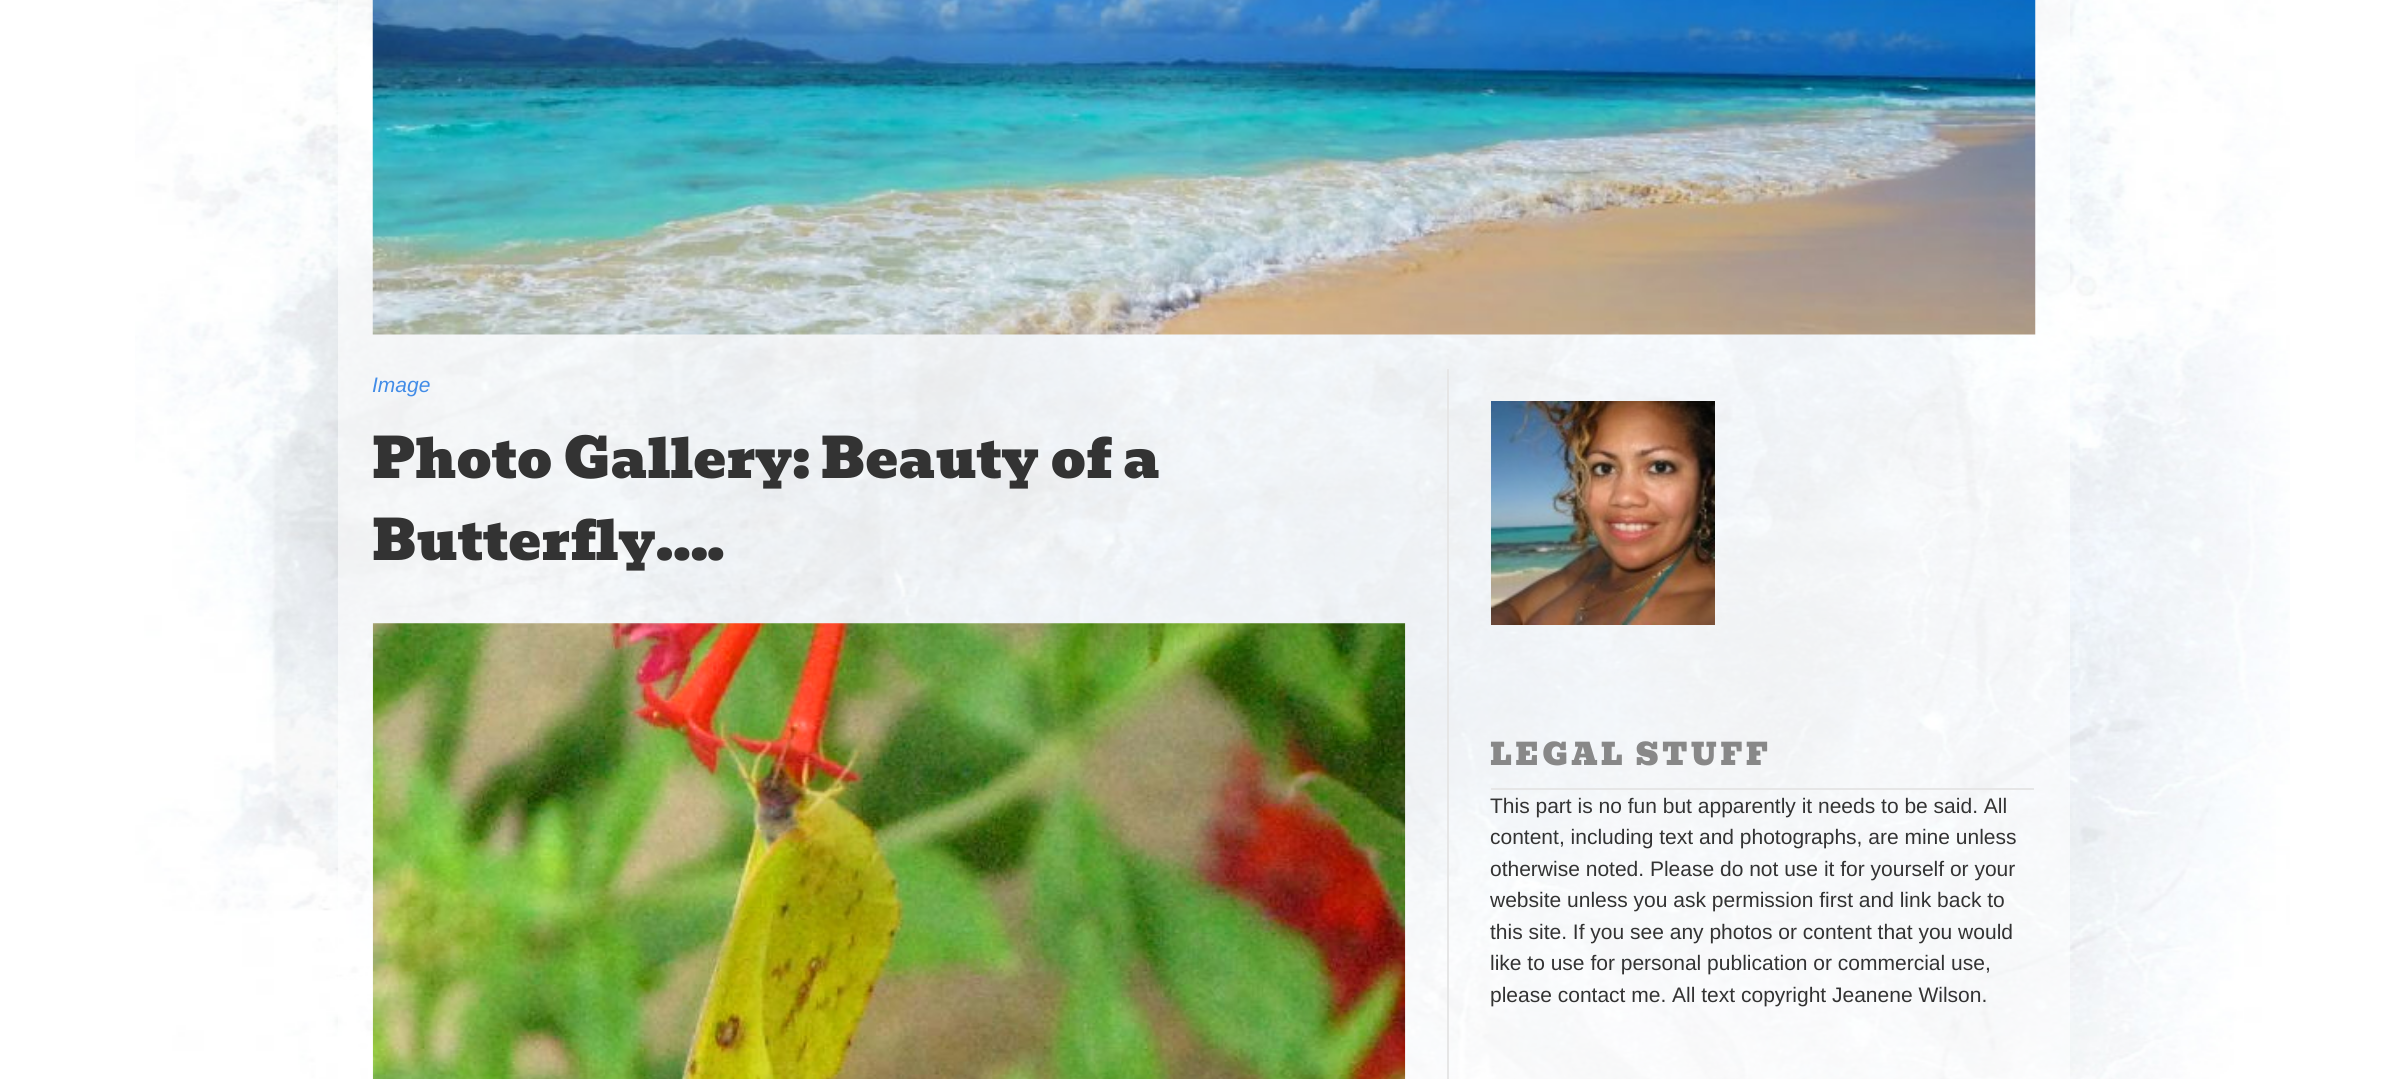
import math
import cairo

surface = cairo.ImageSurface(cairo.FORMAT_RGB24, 2405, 1079)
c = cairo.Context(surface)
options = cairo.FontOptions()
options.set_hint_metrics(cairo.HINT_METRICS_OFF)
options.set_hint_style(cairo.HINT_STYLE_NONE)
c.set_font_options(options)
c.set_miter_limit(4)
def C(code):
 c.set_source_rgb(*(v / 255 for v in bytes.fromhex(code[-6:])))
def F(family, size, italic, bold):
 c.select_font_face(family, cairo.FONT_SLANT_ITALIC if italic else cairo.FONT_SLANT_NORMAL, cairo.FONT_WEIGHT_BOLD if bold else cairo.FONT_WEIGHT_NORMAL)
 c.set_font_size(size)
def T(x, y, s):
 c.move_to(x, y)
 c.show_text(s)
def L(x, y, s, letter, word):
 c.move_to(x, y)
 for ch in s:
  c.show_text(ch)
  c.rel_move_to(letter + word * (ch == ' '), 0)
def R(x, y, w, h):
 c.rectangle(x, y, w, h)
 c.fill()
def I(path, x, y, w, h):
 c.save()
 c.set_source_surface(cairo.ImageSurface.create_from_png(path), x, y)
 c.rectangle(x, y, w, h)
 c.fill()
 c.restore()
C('ffffff')
c.paint()
I('1.png',135,0,2155,1079)
c.set_source_rgba(1,1,1,0.6)
R(338,0,1732,1079)
I('2.png',372,0,1664,335)
C('e6e6e6')
R(1447,369,2,710)
F('Liberation Sans',21,1,0)
C('428ce7')
T(372,392,'Image')
F('Bevan',54.6,0,0)
C('333333')
T(372,478,'Photo Gallery: Beauty of a')
T(372,560,'Butterfly….')
I('3.png',372,623,1034,456)
I('4.png',1491,401,224,224)
C('e6e6e6')
R(1491,788,543,2)
F('Bevan',30,0,0)
C('888888')
L(1490,765,'LEGAL STUFF',3.5,0)
F('Liberation Sans',21,0,0)
C('333333')
T(1490,813,'This part is no fun but apparently it needs to be said. All')
T(1490,844,'content, including text and photographs, are mine unless')
T(1490,876,'otherwise noted. Please do not use it for yourself or your')
T(1490,907,'website unless you ask permission first and link back to')
T(1490,939,'this site. If you see any photos or content that you would')
T(1490,970,'like to use for personal publication or commercial use,')
T(1490,1002,'please contact me. All text copyright Jeanene Wilson.')
surface.write_to_png('o.png')
